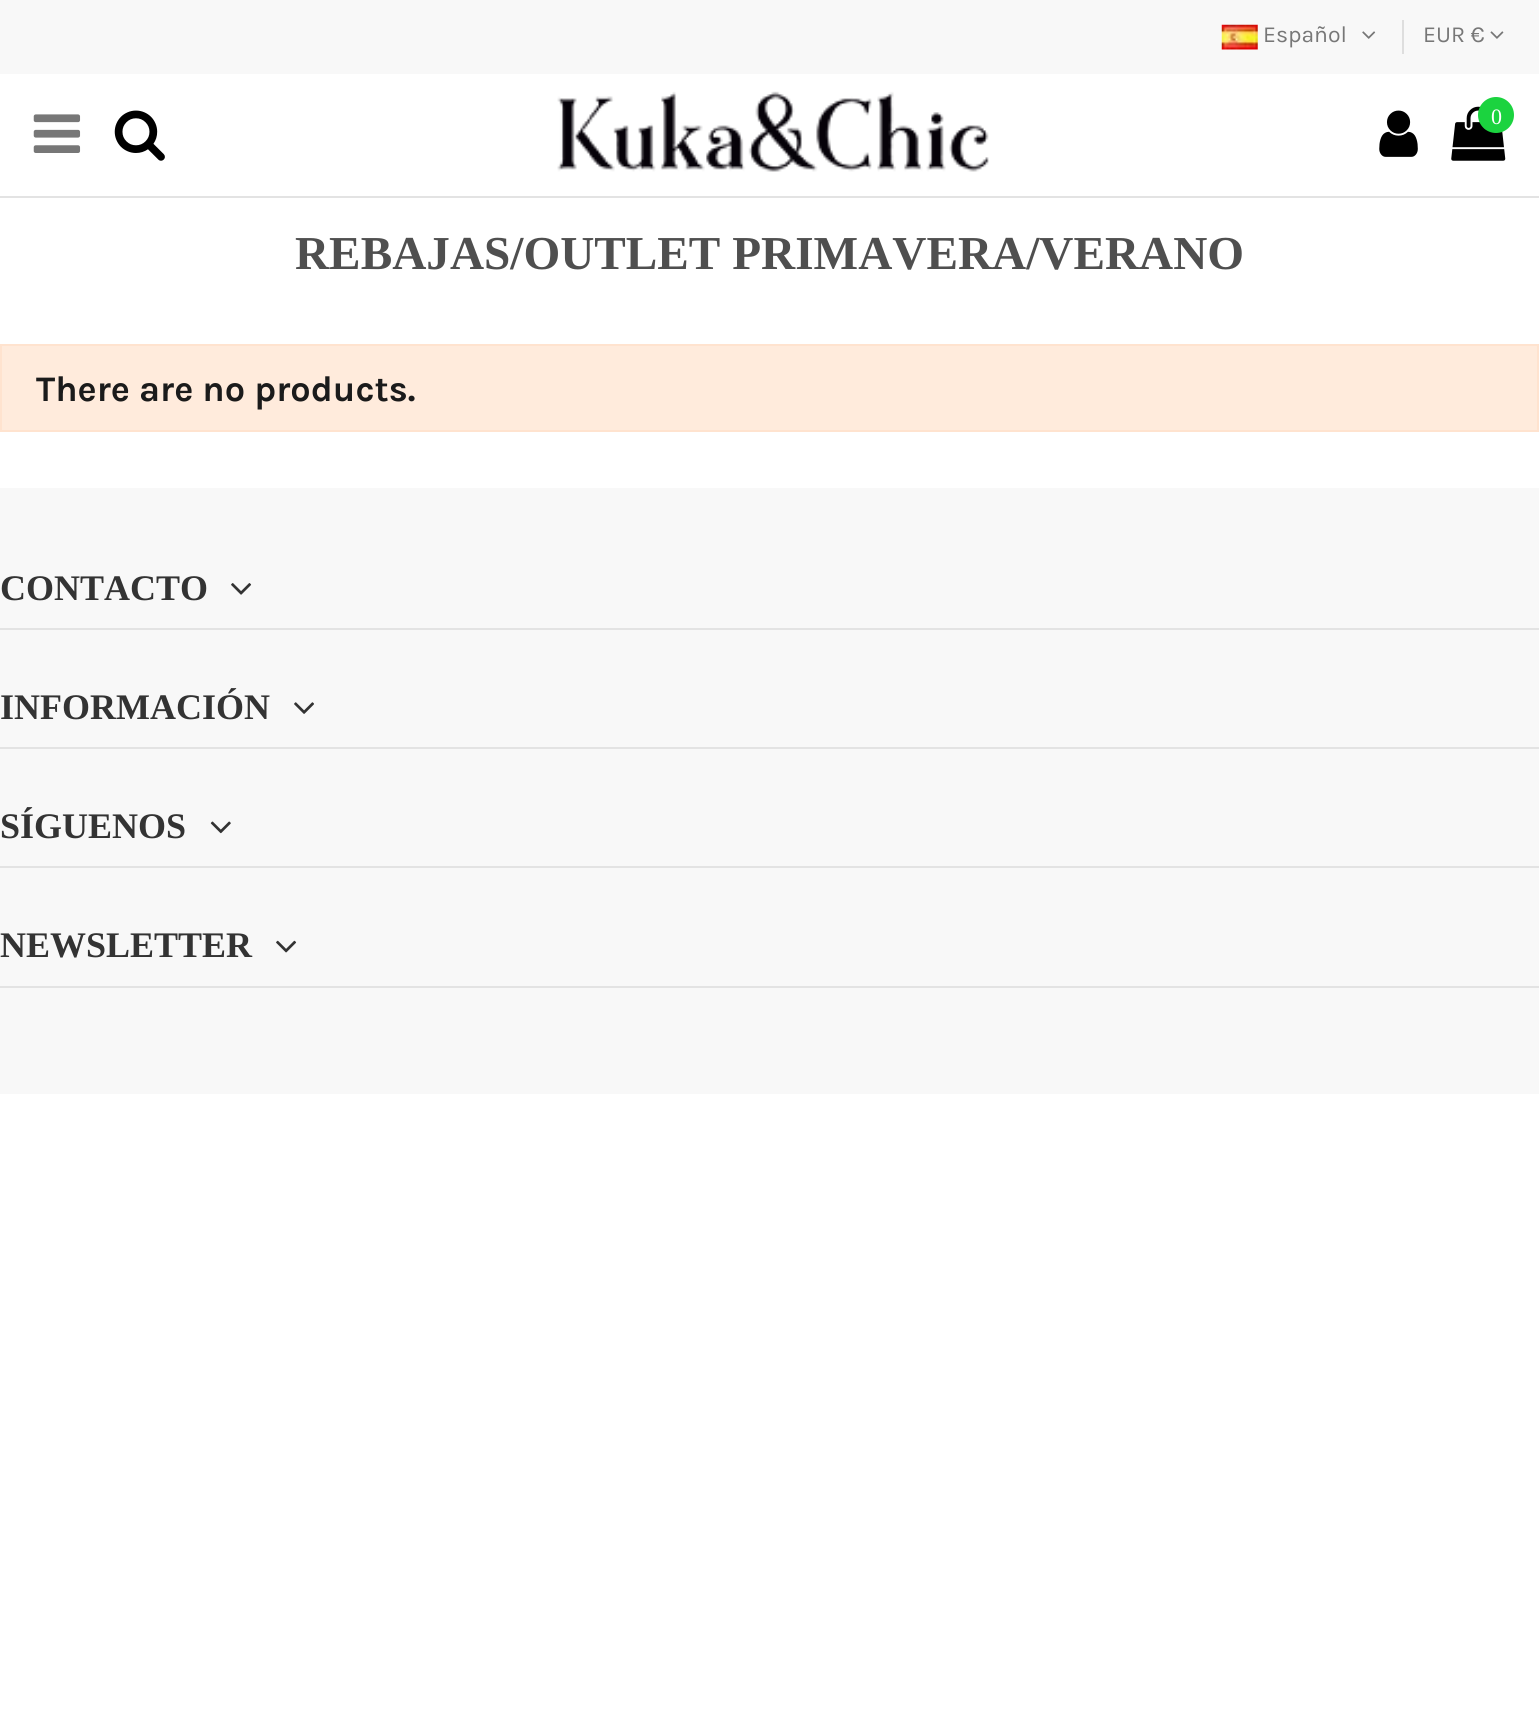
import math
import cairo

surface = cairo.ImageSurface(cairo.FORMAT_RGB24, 1539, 1736)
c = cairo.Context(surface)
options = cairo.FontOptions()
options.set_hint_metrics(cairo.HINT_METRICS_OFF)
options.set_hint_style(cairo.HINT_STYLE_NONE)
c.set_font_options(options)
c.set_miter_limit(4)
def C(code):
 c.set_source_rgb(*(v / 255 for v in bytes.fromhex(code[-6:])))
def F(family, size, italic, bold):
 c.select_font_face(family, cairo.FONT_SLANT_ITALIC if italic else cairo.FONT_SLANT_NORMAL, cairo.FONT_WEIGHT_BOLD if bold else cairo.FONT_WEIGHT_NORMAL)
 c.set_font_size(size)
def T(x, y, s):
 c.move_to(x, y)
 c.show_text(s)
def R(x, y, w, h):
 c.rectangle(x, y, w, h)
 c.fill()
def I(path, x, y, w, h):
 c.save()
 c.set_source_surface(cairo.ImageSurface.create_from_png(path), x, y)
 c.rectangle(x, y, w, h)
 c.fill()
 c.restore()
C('ffffff')
c.paint()
C('f8f8f8')
R(0,0,1539,74)
I('1.png',1221,24,37,26)
F('Karla',23,0,0)
C('777777')
T(1263,42,'Español')
I('2.png',1362,31,14,8)
C('dedede')
R(1402,20,2,34)
C('777777')
T(1423,42,'EUR €')
I('3.png',1490,31,14,8)
C('e3e3e3')
R(0,196,1539,2)
I('4.png',33,114,48,39)
I('5.png',114,110,51,51)
I('6.png',557,91,432,81)
I('7.png',1379,110,39,47)
I('8.png',1451,106,55,55)
C('1bd33f')
c.arc(1496,115,18,0,2 * math.pi)
c.fill()
F('Liberation Serif',22,0,0)
C('ffffff')
T(1491,124,'0')
F('Liberation Serif',47.25,0,1)
C('4f4f4f')
T(295,269,'REBAJAS/OUTLET PRIMAVERA/VERANO')
C('ffebdc')
c.rectangle(1,345,1537,86)
c.fill_preserve()
C('ffe3cf')
c.stroke()
F('Karla',36,0,1)
C('1b1b1b')
T(36,401,'There are no products.')
C('f8f8f8')
R(0,488,1539,606)
C('e3e3e3')
R(0,628,1539,2)
F('Liberation Serif',36,0,1)
C('333333')
T(0,600,'CONTACTO')
I('9.png',231,583,21,12)
C('e3e3e3')
R(0,747,1539,2)
C('333333')
T(0,719,'INFORMACIÓN')
I('10.png',294,702,20,12)
C('e3e3e3')
R(0,866,1539,2)
C('333333')
T(0,838,'SÍGUENOS')
I('11.png',210,821,21,13)
C('e3e3e3')
R(0,986,1539,2)
C('333333')
T(0,957,'NEWSLETTER')
I('12.png',276,940,21,13)
surface.write_to_png('o.png')
